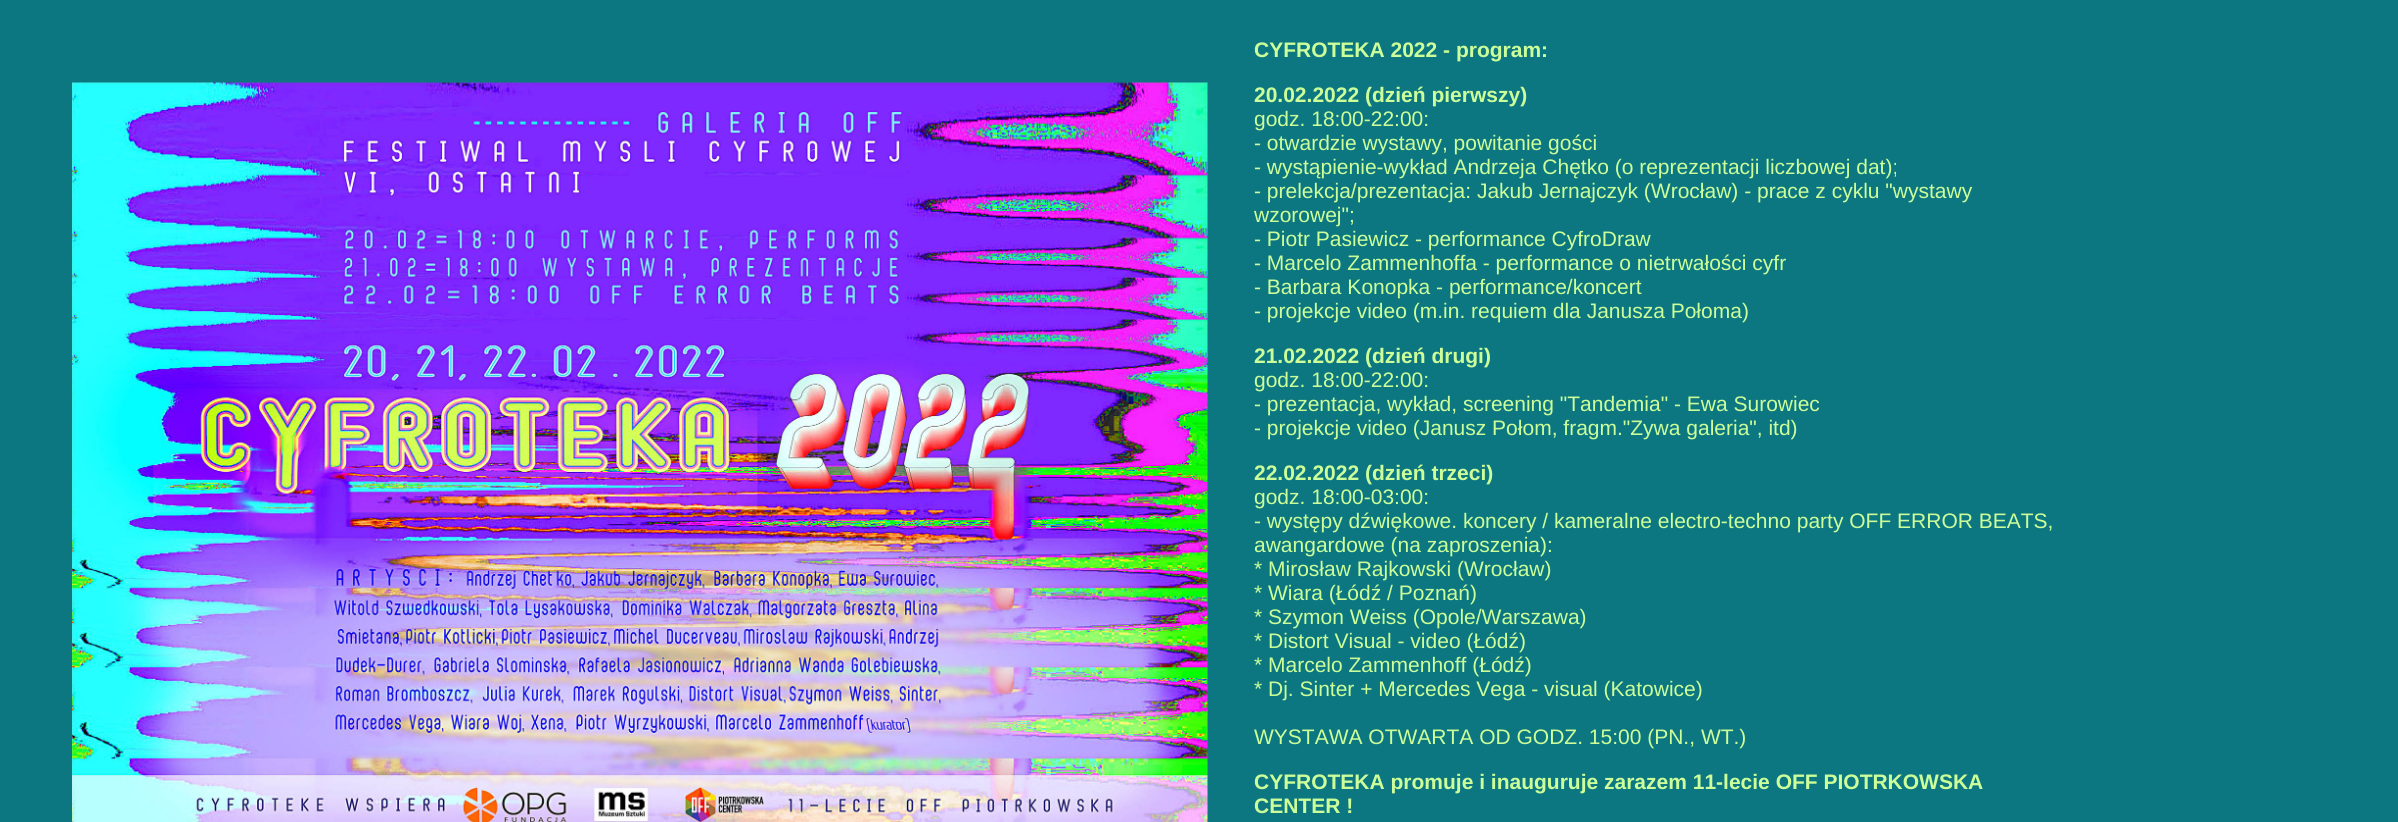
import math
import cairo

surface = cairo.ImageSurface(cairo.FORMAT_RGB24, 2398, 822)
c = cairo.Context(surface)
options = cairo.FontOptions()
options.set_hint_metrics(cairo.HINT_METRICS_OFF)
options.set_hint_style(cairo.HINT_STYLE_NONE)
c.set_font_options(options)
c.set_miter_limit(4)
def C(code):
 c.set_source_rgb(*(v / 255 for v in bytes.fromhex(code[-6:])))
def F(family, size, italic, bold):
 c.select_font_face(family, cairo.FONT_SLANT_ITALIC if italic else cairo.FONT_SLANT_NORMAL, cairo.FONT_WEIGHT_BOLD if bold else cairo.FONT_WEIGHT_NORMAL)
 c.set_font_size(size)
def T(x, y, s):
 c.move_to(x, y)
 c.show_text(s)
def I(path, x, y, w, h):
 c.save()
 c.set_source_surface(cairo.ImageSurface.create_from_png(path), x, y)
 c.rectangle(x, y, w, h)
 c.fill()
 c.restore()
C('0c7781')
c.paint()
I('1.png',72,82,1136,740)
F('Liberation Sans',21,0,1)
C('ccff99')
T(1254,57,'CYFROTEKA 2022 - program:')
T(1254,102,'20.02.2022 (dzień pierwszy)')
F('Liberation Sans',21,0,0)
T(1254,126,'godz. 18:00-22:00:')
T(1254,150,'- otwardzie wystawy, powitanie gości')
T(1254,174,'- wystąpienie-wykład Andrzeja Chętko (o reprezentacji liczbowej dat);')
T(1254,198,'- prelekcja/prezentacja: Jakub Jernajczyk (Wrocław) - prace z cyklu "wystawy')
T(1254,222,'wzorowej";')
T(1254,246,'- Piotr Pasiewicz - performance CyfroDraw')
T(1254,270,'- Marcelo Zammenhoffa - performance o nietrwałości cyfr')
T(1254,294,'- Barbara Konopka - performance/koncert')
T(1254,318,'- projekcje video (m.in. requiem dla Janusza Połoma)')
F('Liberation Sans',21,0,1)
T(1254,363,'21.02.2022 (dzień drugi)')
F('Liberation Sans',21,0,0)
T(1254,387,'godz. 18:00-22:00:')
T(1254,411,'- prezentacja, wykład, screening "Tandemia" - Ewa Surowiec')
T(1254,435,'- projekcje video (Janusz Połom, fragm."Zywa galeria", itd)')
F('Liberation Sans',21,0,1)
T(1254,480,'22.02.2022 (dzień trzeci)')
F('Liberation Sans',21,0,0)
T(1254,504,'godz. 18:00-03:00:')
T(1254,528,'- występy dźwiękowe. koncery / kameralne electro-techno party OFF ERROR BEATS,')
T(1254,552,'awangardowe (na zaproszenia):')
T(1254,576,'* Mirosław Rajkowski (Wrocław)')
T(1254,600,'* Wiara (Łódź / Poznań)')
T(1254,624,'* Szymon Weiss (Opole/Warszawa)')
T(1254,648,'* Distort Visual - video (Łódź)')
T(1254,672,'* Marcelo Zammenhoff (Łódź)')
T(1254,696,'* Dj. Sinter + Mercedes Vega - visual (Katowice)')
T(1254,744,'WYSTAWA OTWARTA OD GODZ. 15:00 (PN., WT.)')
F('Liberation Sans',21,0,1)
T(1254,789,'CYFROTEKA promuje i inauguruje zarazem 11-lecie OFF PIOTRKOWSKA')
T(1254,813,'CENTER !')
surface.write_to_png('o.png')
